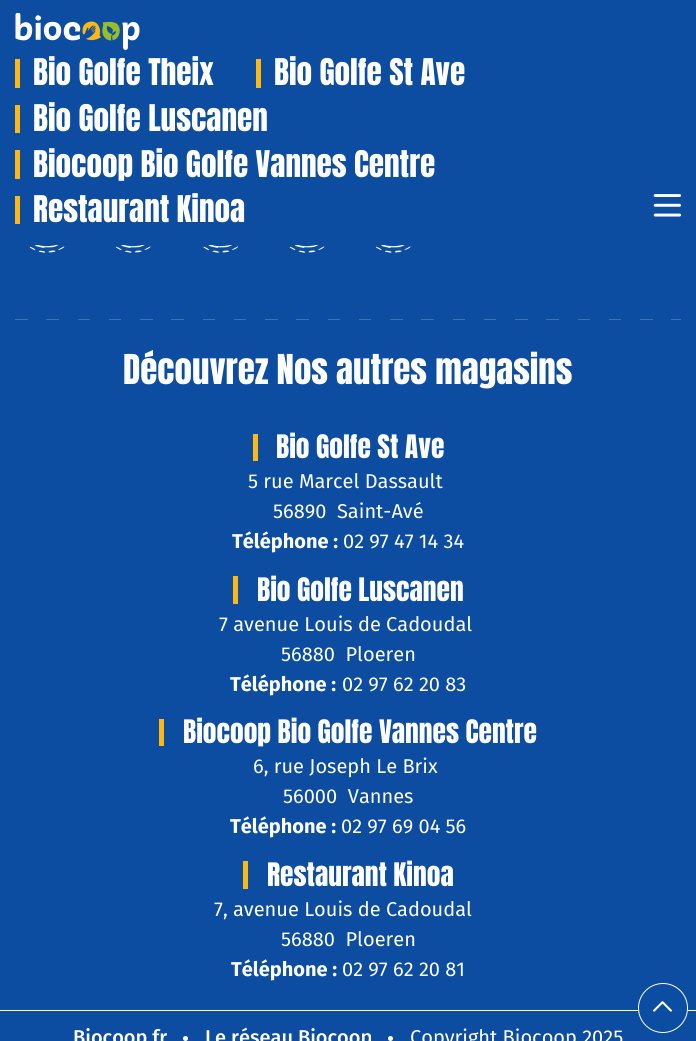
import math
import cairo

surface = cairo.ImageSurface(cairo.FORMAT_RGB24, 696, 1041)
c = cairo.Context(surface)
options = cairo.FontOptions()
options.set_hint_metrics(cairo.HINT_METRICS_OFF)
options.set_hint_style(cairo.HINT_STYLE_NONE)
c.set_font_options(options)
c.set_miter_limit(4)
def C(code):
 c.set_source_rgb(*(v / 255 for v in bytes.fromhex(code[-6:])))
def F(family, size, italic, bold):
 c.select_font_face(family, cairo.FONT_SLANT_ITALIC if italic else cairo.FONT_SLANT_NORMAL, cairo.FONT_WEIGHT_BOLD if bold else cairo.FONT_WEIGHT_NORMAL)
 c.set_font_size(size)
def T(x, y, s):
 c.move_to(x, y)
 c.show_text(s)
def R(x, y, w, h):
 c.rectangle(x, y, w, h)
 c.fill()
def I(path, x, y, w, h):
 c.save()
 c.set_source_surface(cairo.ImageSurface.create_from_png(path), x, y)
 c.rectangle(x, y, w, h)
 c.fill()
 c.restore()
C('0c4da2')
c.paint()
I('1.png',15,13,125,37)
C('fdb813')
R(15,59,5,29)
F('Anton',31.25,0,0)
C('ffffff')
T(33,85,'Bio Golfe Theix')
C('fdb813')
R(256,59,5,29)
C('ffffff')
T(274,85,'Bio Golfe St Ave')
C('fdb813')
R(15,105,5,28)
C('ffffff')
T(33,131,'Bio Golfe Luscanen')
C('fdb813')
R(15,150,5,29)
C('ffffff')
T(33,177,'Biocoop Bio Golfe Vannes Centre')
C('fdb813')
R(15,196,5,28)
C('ffffff')
T(33,222,'Restaurant Kinoa')
I('2.png',653,194,29,23)
R(0,1010,696,1)
c.set_source_rgba(0.047,0.302,0.635,0.98)
c.arc(663,1008,25,0,2 * math.pi)
c.fill()
c.arc(663,1008,24.5,0,2 * math.pi)
c.set_source_rgba(1,1,1,0.98)
c.set_line_width(1)
c.stroke()
I('3.png',653,1001,19,11)
I('4.png',29,245,36,8)
I('5.png',116,245,35,8)
I('6.png',203,245,35,8)
I('4.png',289,245,36,8)
I('5.png',376,245,35,8)
I('7.png',15,319,666,1)
F('Anton',35,0,0)
C('ffffff')
T(123,384,'Découvrez Nos autres magasins')
C('fdb813')
R(253,434,5,27)
F('Anton',27.5,0,0)
C('ffffff')
T(276,458,'Bio Golfe St Ave')
F('Fira Sans',20,0,0)
T(248,488,'5 rue Marcel Dassault')
T(273,518,'56890  Saint-Avé')
F('Fira Sans',20,0,1)
T(232,548,'Téléphone :')
F('Fira Sans',20,0,0)
T(343,548,'02 97 47 14 34')
C('fdb813')
R(233,576,5,28)
F('Anton',27.5,0,0)
C('ffffff')
T(257,601,'Bio Golfe Luscanen')
F('Fira Sans',20,0,0)
T(219,631,'7 avenue Louis de Cadoudal')
T(281,661,'56880  Ploeren')
F('Fira Sans',20,0,1)
T(230,691,'Téléphone :')
F('Fira Sans',20,0,0)
T(342,691,'02 97 62 20 83')
C('fdb813')
R(159,719,5,27)
F('Anton',27.5,0,0)
C('ffffff')
T(183,743,'Biocoop Bio Golfe Vannes Centre')
F('Fira Sans',20,0,0)
T(253,773,'6, rue Joseph Le Brix')
T(283,803,'56000  Vannes')
F('Fira Sans',20,0,1)
T(230,833,'Téléphone :')
F('Fira Sans',20,0,0)
T(341,833,'02 97 69 04 56')
C('fdb813')
R(243,861,5,28)
F('Anton',27.5,0,0)
C('ffffff')
T(267,886,'Restaurant Kinoa')
F('Fira Sans',20,0,0)
T(214,916,'7, avenue Louis de Cadoudal')
T(281,946,'56880  Ploeren')
F('Fira Sans',20,0,1)
T(231,976,'Téléphone :')
F('Fira Sans',20,0,0)
T(342,976,'02 97 62 20 81')
F('Fira Sans Medium',20,0,0)
T(73,1044,'Biocoop.fr')
c.new_path()
c.arc(185.5,1038.5,2.5,0,2 * math.pi)
c.fill()
T(205,1044,'Le réseau Biocoop')
c.new_path()
c.arc(390.5,1038.5,2.5,0,2 * math.pi)
c.fill()
F('Fira Sans',20,0,0)
T(410,1044,'Copyright Biocoop 2025')
surface.write_to_png('o.png')
